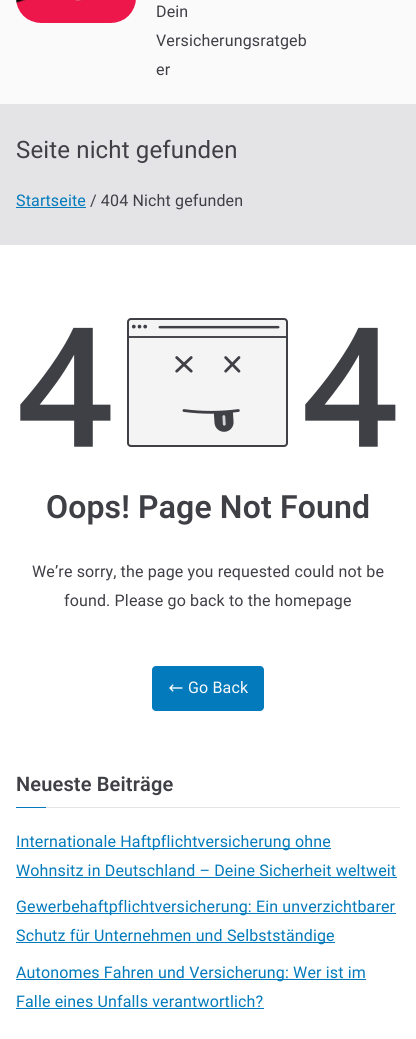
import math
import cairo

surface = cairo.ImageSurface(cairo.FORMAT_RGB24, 416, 1039)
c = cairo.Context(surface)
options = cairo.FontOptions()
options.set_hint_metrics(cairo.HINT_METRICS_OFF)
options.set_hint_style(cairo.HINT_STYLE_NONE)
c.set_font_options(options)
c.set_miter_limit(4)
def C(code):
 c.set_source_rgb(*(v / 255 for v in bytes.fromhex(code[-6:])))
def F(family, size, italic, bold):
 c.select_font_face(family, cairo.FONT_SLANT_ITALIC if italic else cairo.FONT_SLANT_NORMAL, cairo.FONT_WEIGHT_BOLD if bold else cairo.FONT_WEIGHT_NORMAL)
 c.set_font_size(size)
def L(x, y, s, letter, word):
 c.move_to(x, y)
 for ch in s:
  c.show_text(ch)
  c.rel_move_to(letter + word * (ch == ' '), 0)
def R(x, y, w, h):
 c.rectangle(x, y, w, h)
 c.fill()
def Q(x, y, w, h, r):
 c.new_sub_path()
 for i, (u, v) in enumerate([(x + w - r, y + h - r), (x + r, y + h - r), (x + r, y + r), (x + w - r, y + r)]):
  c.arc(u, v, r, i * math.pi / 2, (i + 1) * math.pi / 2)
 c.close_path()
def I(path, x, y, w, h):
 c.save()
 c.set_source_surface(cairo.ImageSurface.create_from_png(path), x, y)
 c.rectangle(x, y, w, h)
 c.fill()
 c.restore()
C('fafafa')
c.paint()
C('e4e4e7')
R(0,104,416,141)
I('1.png',16,0,120,23)
F('Roboto',16,0,0)
C('3f3f46')
L(156,17,'Dein',.15,0)
L(156,46,'Versicherungsratgeb',.15,0)
L(156,75,'er',.15,0)
F('Roboto',24,0,0)
L(16,158,'Seite nicht gefunden',.15,0)
F('Roboto',16,0,0)
C('027abb')
L(16,206,'Startseite',.15,0)
R(16,207,70,1)
C('3f3f46')
L(90,206,'/ 404 Nicht gefunden',.15,0)
C('ffffff')
R(0,245,416,794)
I('2.png',20,318,376,129)
F('Roboto SemiBold',32,0,0)
C('3f3f46')
L(46,518,'Oops! Page Not Found',.15,0)
F('Roboto',16,0,0)
L(32,577,'We’re sorry, the page you requested could not be',.15,0)
L(64,606,'found. Please go back to the homepage',.15,0)
C('027abb')
Q(152,666,112,45,4)
c.fill()
I('3.png',169,684,14,8)
C('fafafa')
L(188,693,'Go Back',.15,0)
C('e4e4e7')
R(46,807,354,1)
F('Roboto SemiBold',20,0,0)
C('3f3f46')
L(16,791,'Neueste Beiträge',.15,0)
C('027abb')
R(16,807,30,1)
R(16,848,315,1)
F('Roboto',16,0,0)
L(16,847,'Internationale Haftpflichtversicherung ohne',.15,0)
L(16,876,'Wohnsitz in Deutschland – Deine Sicherheit weltweit',.15,0)
R(16,877,381,1)
R(16,913,380,1)
L(16,912,'Gewerbehaftpflichtversicherung: Ein unverzichtbarer',.15,0)
R(16,942,319,1)
L(16,941,'Schutz für Unternehmen und Selbstständige',.15,0)
R(16,979,350,1)
L(16,978,'Autonomes Fahren und Versicherung: Wer ist im',.15,0)
L(16,1007,'Falle eines Unfalls verantwortlich?',.15,0)
R(16,1008,248,1)
surface.write_to_png('o.png')
